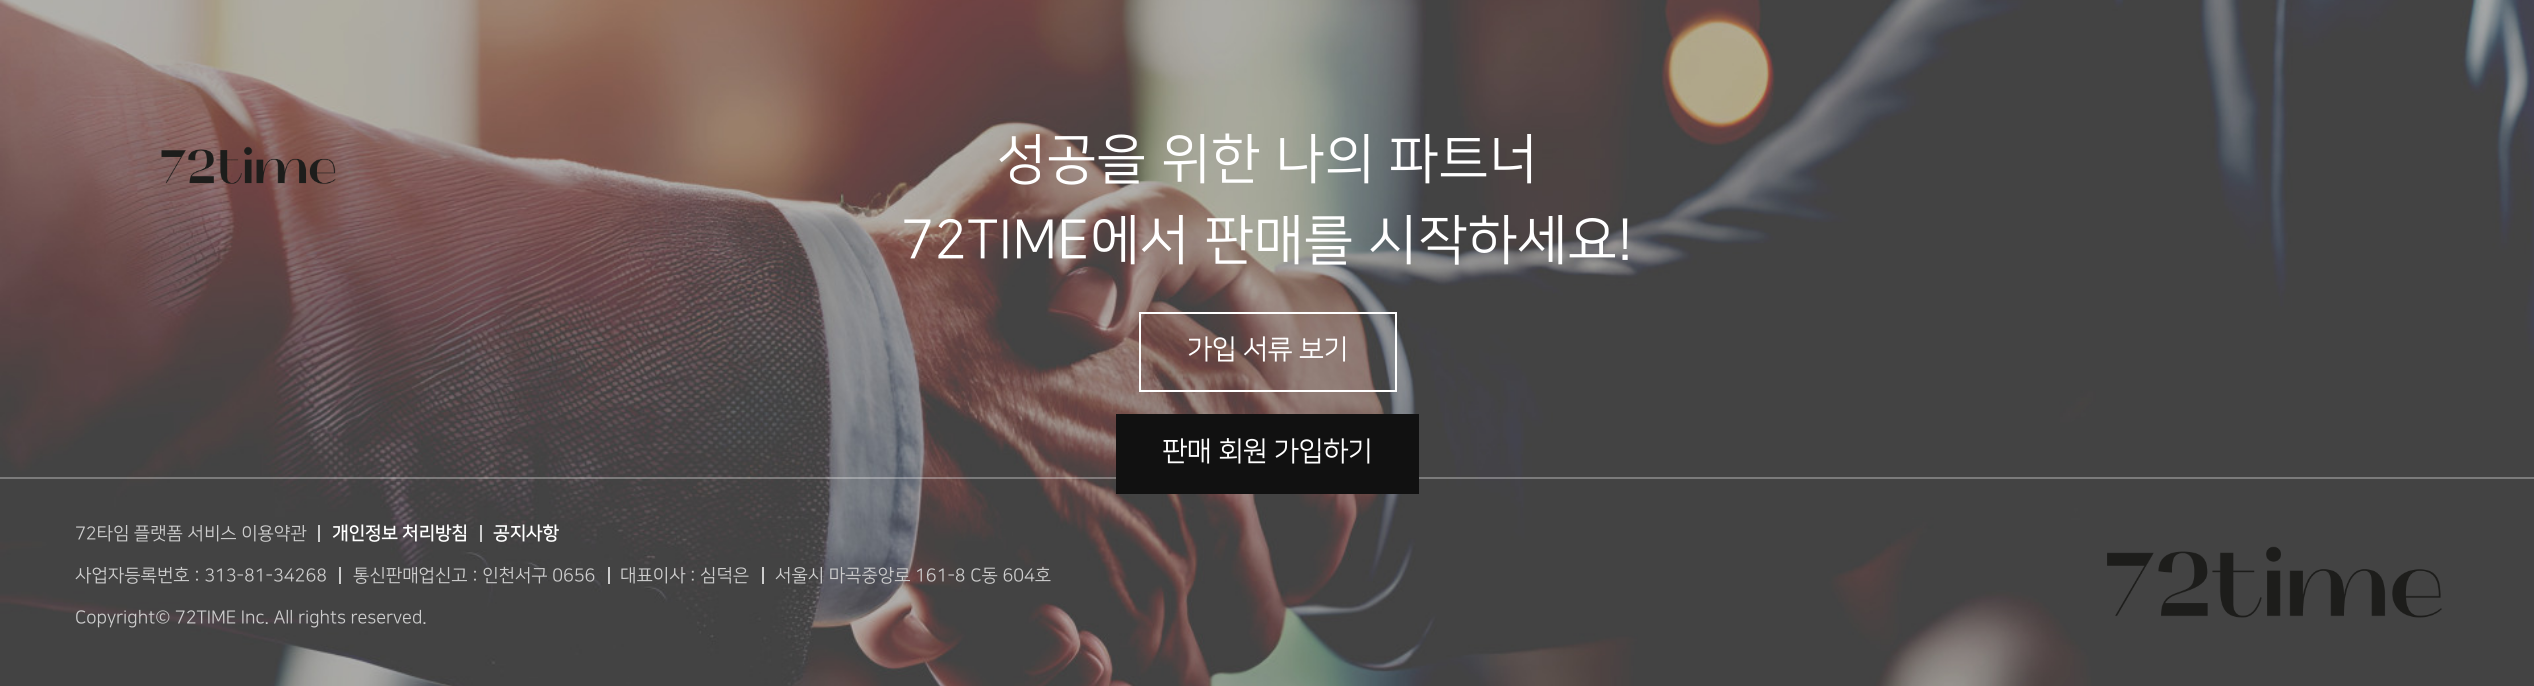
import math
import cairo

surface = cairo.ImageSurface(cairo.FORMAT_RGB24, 2534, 686)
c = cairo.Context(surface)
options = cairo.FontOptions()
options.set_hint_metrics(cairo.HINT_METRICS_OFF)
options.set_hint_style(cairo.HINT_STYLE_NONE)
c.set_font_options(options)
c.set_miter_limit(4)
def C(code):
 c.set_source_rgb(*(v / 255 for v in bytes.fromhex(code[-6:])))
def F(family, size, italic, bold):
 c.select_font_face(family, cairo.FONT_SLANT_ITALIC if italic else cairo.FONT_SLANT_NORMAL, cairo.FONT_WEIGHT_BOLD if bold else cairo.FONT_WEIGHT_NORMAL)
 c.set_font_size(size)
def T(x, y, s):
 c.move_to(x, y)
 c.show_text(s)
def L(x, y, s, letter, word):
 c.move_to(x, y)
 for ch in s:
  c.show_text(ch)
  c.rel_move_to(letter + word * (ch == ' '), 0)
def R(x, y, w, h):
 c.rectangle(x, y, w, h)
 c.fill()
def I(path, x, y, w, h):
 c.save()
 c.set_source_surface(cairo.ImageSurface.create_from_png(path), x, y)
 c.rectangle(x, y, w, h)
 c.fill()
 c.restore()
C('ffffff')
c.paint()
I('1.png',0,0,2534,686)
I('2.png',161,146,175,38)
F('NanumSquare',54,0,0)
C('ffffff')
L(997,176,'성공을 위한 나의 파트너',.75,0)
L(901,257,'72TIME에서 판매를 시작하세요!',.75,0)
c.rectangle(1140,313,256,78)
c.stroke()
F('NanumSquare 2',27,0,1)
T(1187,358,'가입 서류 보기')
c.set_source_rgba(1,1,1,0.3)
R(0,477,2534,2)
C('111111')
R(1116,414,303,80)
C('ffffff')
T(1162,460,'판매 회원 가입하기')
F('NanumSquare',18,0,0)
C('cdcdcd')
T(75,539,'72타임 플랫폼 서비스 이용약관')
R(318,525,2,17)
F('NanumSquare',18,0,1)
C('ffffff')
T(332,539,'개인정보 처리방침')
C('cdcdcd')
R(480,525,2,17)
C('ffffff')
T(493,539,'공지사항')
F('NanumSquare',18,0,0)
C('cdcdcd')
T(75,581,'사업자등록번호 : 313-81-34268')
R(339,567,2,17)
T(353,581,'통신판매업신고 : 인천서구 0656')
R(608,567,2,17)
T(620,581,'대표이사 : 심덕은')
R(762,567,2,17)
T(775,581,'서울시 마곡중앙로 161-8 C동 604호')
I('3.png',2107,546,335,72)
T(75,623,'Copyright© 72TIME Inc. All rights reserved.')
surface.write_to_png('o.png')
